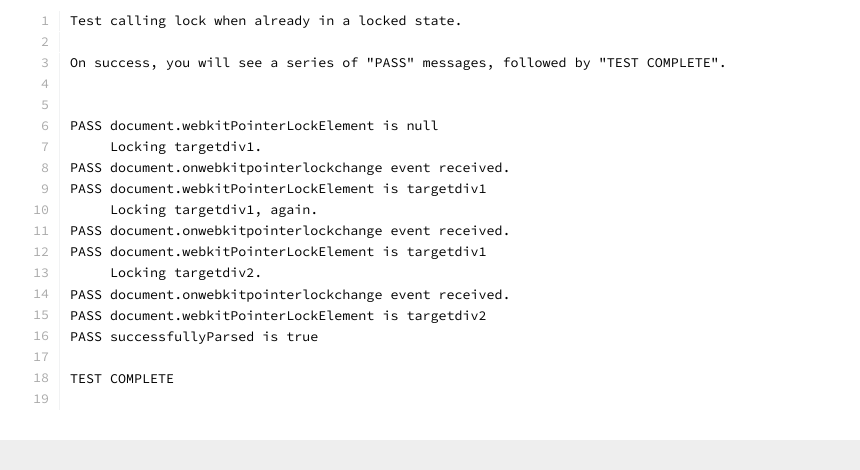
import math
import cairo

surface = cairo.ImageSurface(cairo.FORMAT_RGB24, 860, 470)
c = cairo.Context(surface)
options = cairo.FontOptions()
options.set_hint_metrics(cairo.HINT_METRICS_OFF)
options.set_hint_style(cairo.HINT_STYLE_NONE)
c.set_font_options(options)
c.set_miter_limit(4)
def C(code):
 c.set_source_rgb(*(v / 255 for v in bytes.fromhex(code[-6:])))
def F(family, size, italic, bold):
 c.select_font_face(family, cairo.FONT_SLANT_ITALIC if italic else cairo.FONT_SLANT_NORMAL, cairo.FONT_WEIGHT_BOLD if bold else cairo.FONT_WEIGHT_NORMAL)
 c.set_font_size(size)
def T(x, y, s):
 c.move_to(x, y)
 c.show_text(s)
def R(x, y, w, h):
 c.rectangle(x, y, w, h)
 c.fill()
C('ffffff')
c.paint()
C('f1f2f3')
R(59,11,1,20)
F('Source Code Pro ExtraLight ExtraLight',13.35,0,0)
C('aaaaaa')
T(41,25,'1')
C('000000')
T(70,25,'Test calling lock when already in a locked state.')
C('f1f2f3')
R(59,32,1,20)
C('aaaaaa')
T(41,46,'2')
C('f1f2f3')
R(59,53,1,357)
C('aaaaaa')
T(41,67,'3')
C('000000')
T(70,67,'On success, you will see a series of "PASS" messages, followed by "TEST COMPLETE".')
C('aaaaaa')
T(41,88,'4')
T(41,109,'5')
T(41,130,'6')
C('000000')
T(70,130,'PASS document.webkitPointerLockElement is null')
C('aaaaaa')
T(41,151,'7')
C('000000')
T(110,151,'Locking targetdiv1.')
C('aaaaaa')
T(41,172,'8')
C('000000')
T(70,172,'PASS document.onwebkitpointerlockchange event received.')
C('aaaaaa')
T(41,193,'9')
C('000000')
T(70,193,'PASS document.webkitPointerLockElement is targetdiv1')
C('aaaaaa')
T(33,214,'10')
C('000000')
T(110,214,'Locking targetdiv1, again.')
C('aaaaaa')
T(33,235,'11')
C('000000')
T(70,235,'PASS document.onwebkitpointerlockchange event received.')
C('aaaaaa')
T(33,256,'12')
C('000000')
T(70,256,'PASS document.webkitPointerLockElement is targetdiv1')
C('aaaaaa')
T(33,277,'13')
C('000000')
T(110,277,'Locking targetdiv2.')
C('aaaaaa')
T(33,298,'14')
C('000000')
T(70,299,'PASS document.onwebkitpointerlockchange event received.')
C('aaaaaa')
T(33,319,'15')
C('000000')
T(70,320,'PASS document.webkitPointerLockElement is targetdiv2')
C('aaaaaa')
T(33,340,'16')
C('000000')
T(70,341,'PASS successfullyParsed is true')
C('aaaaaa')
T(33,361,'17')
T(33,382,'18')
C('000000')
T(70,383,'TEST COMPLETE')
C('aaaaaa')
T(33,403,'19')
C('eeeeee')
R(0,440,860,30)
surface.write_to_png('o.png')
